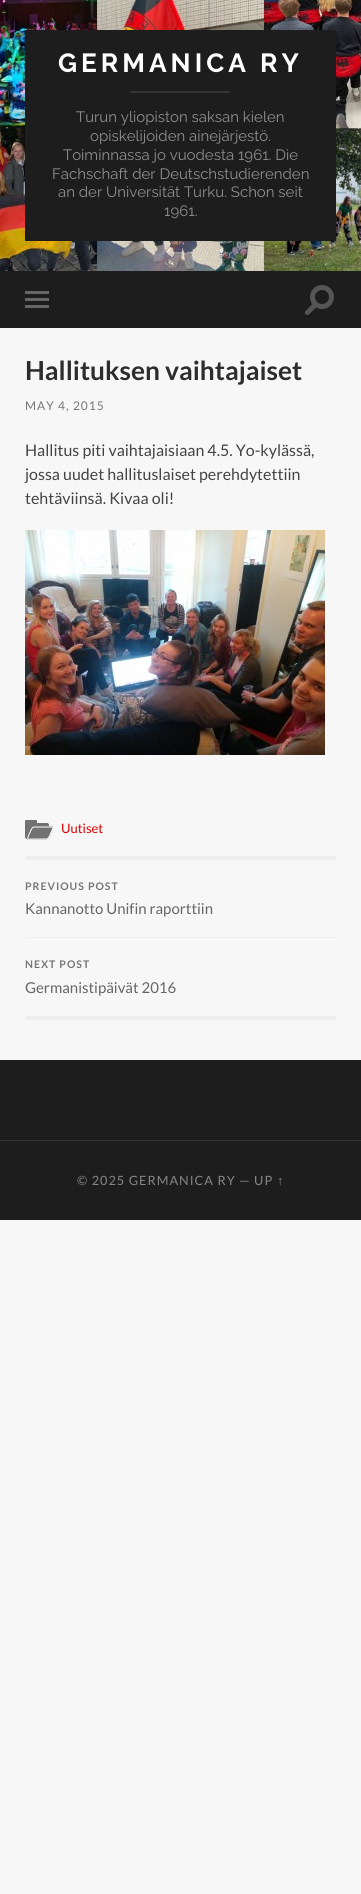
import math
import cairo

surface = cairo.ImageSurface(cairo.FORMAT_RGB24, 361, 1894)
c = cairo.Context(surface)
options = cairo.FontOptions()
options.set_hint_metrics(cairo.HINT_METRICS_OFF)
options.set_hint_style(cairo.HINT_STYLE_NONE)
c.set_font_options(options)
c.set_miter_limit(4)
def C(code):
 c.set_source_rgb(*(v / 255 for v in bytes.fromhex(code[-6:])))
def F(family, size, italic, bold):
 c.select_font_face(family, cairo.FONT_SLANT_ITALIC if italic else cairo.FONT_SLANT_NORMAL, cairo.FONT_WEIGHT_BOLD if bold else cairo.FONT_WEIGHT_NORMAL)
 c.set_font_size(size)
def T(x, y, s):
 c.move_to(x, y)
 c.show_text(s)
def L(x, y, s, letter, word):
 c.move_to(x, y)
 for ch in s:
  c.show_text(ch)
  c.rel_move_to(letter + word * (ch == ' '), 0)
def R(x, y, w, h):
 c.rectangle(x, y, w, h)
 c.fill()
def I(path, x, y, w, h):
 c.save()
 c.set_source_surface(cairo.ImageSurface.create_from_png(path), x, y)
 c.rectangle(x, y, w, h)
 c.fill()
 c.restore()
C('f7f7f7')
c.paint()
I('1.png',0,0,361,271)
C('1d1d1d')
R(25,30,311,211)
F('Raleway Thin',26.25,0,0)
C('ffffff')
L(58,72,'GERMANICA RY',4,0)
C('343434')
R(130,91,100,2)
F('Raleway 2 Thin',15,0,0)
C('8e8e8e')
T(76,122,'Turun yliopiston saksan kielen')
T(90,141,'opiskelijoiden ainejärjestö.')
T(63,160,'Toiminnassa jo vuodesta 1961. Die')
T(52,179,'Fachschaft der Deutschstudierenden')
T(58,197,'an der Universität Turku. Schon seit')
T(164,216,'1961.')
C('1d1d1d')
R(0,271,361,57)
C('666666')
R(25,291,24,3)
R(25,298,24,3)
R(25,305,24,3)
C('555555')
c.new_path()
c.arc(322,297,12,0,2 * math.pi)
c.fill()
C('1d1d1d')
c.arc(322,297,7,0,2 * math.pi)
c.fill()
C('555555')
c.new_path()
c.move_to(305.5,311)
c.line_to(314,302.5)
c.line_to(317.5,306)
c.line_to(312,311.5)
c.curve_to(310,313.5,307.5,317,305,313.5)
c.curve_to(304.5,313,305,311.5,305.5,311)
c.close_path()
c.fill()
F('Lato',26.25,0,1)
C('2d2d2d')
T(25,380,'Hallituksen vaihtajaiset')
F('Lato',12,0,0)
C('767676')
L(25,410,'MAY 4, 2015',1,0)
F('Lato',16,0,0)
C('444444')
T(25,456,'Hallitus piti vaihtajaisiaan 4.5. Yo-kylässä,')
T(25,480,'jossa uudet hallituslaiset perehdytettiin')
T(25,504,'tehtäviinsä. Kivaa oli!')
I('2.png',25,530,300,225)
C('727272')
c.new_path()
c.move_to(25,823)
c.line_to(47,823)
c.curve_to(48,823,49,824,49,825)
c.line_to(49,837)
c.curve_to(49,838,48,839,47,839)
c.line_to(27,839)
c.curve_to(26,839,25,838,25,837)
c.close_path()
c.fill()
c.new_path()
c.move_to(26,820)
c.line_to(36,820)
c.curve_to(36.5,820,37,820.5,37,821)
c.line_to(37,823)
c.line_to(25,823)
c.line_to(25,821)
c.curve_to(25,820.5,25.5,820,26,820)
c.close_path()
c.fill()
c.new_path()
c.move_to(34.5,826.5)
c.line_to(46.5,826.5)
c.curve_to(51,826.5,55,825,52.5,830)
c.line_to(50,836)
c.curve_to(48,839.5,47.5,839.5,43,839.5)
c.line_to(28,839.5)
c.curve_to(25,839.5,29,834,29.5,833)
c.curve_to(30,831,31.5,826.5,34.5,826.5)
c.close_path()
c.fill()
c.new_path()
c.move_to(34,827)
c.line_to(49,827)
c.curve_to(54.5,827,53.5,827,51.5,831.5)
c.curve_to(50.5,833,49,839,46.5,839)
c.line_to(34.5,839)
c.curve_to(27.5,839,26.5,840.5,29,834.5)
c.curve_to(30,833,31.5,827,34,827)
c.close_path()
C('ffffff')
c.set_line_width(1)
c.stroke()
F('Lato',13,0,0)
C('dd0000')
T(61,833,'Uutiset')
C('eeeeee')
R(25,856,311,4)
R(25,1016,311,4)
F('Lato',10.5,0,1)
C('767676')
L(25,890,'PREVIOUS POST',1,0)
F('Lato',15,0,0)
C('666666')
T(25,914,'Kannanotto Unifin raporttiin')
C('eeeeee')
R(25,937,311,1)
F('Lato',10.5,0,1)
C('767676')
L(25,968,'NEXT POST',1,0)
F('Lato',15,0,0)
C('666666')
T(25,993,'Germanistipäivät 2016')
C('1d1d1d')
R(0,1060,361,80)
R(0,1141,361,79)
C('343434')
R(0,1140,361,1)
F('Lato',12.75,0,0)
C('858585')
L(77,1185,'© 2025 GERMANICA RY — UP',1,0)
F('Liberation Sans',12.75,0,0)
L(277,1185,'↑',1,0)
surface.write_to_png('o.png')
